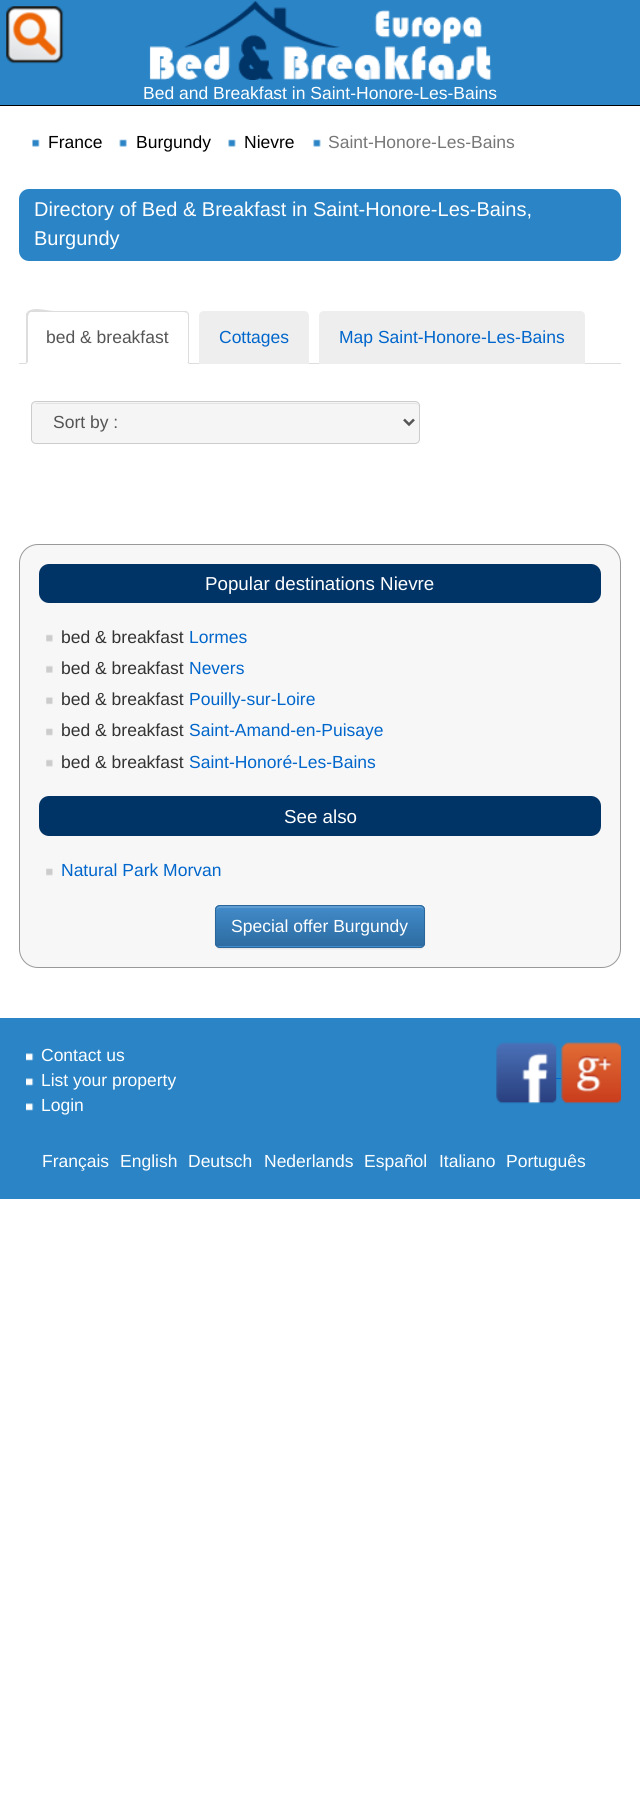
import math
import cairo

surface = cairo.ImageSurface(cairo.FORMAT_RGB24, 640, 1819)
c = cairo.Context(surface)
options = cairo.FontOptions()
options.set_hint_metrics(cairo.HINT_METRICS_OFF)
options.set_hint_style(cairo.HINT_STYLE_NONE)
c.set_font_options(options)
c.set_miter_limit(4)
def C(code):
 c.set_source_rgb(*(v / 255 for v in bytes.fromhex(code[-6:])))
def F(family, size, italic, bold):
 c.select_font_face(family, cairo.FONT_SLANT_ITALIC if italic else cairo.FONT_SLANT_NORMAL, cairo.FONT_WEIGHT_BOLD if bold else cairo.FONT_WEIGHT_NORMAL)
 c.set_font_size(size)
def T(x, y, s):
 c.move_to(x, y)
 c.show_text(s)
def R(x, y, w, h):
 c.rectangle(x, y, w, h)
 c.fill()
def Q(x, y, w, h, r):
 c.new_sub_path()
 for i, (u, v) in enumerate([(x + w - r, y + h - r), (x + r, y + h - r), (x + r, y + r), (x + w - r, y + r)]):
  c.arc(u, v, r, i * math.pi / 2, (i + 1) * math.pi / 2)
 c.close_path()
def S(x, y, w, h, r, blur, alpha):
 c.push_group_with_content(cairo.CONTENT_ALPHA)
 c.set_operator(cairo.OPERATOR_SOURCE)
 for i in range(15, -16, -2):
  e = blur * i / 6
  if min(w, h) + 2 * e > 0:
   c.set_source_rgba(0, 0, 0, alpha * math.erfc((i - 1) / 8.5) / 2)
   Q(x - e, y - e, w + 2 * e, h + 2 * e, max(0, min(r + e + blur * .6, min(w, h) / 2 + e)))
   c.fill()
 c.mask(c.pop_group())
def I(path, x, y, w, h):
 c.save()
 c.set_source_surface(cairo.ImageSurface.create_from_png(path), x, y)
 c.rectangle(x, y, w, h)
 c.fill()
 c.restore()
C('ffffff')
c.paint()
C('2a84c6')
R(0,0,640,105)
C('000000')
R(0,105,640,1)
I('1.png',149,1,343,79)
F('Liberation Sans',17.5,0,0)
C('ffffff')
T(143,99,'Bed and Breakfast in Saint-Honore-Les-Bains')
I('2.png',32,139,8,8)
C('000000')
T(48,148,'France')
I('3.png',119,139,8,8)
T(136,148,'Burgundy')
I('4.png',228,139,8,8)
T(244,148,'Nievre')
I('4.png',313,139,8,8)
C('777777')
T(328,148,'Saint-Honore-Les-Bains')
I('5.png',6,6,58,58)
C('2a84c6')
Q(19,189,602,72,10)
c.fill()
F('Liberation Sans',20,0,0)
C('ffffff')
T(34,216,'Directory of Bed & Breakfast in Saint-Honore-Les-Bains,')
T(34,245,'Burgundy')
C('dddddd')
R(19,363,602,1)
C('ffffff')
c.new_path()
c.move_to(31,311)
c.line_to(184,311)
c.curve_to(187,311,189,313,189,316)
c.line_to(189,364)
c.line_to(26,364)
c.line_to(26,316)
c.curve_to(26,313,28,311,31,311)
c.close_path()
c.fill()
C('dddddd')
c.new_path()
c.move_to(31,312)
c.curve_to(30,312,29,313,29,314)
c.line_to(27,312)
c.curve_to(34,306,46,311,55,311)
c.line_to(186,311)
c.line_to(188,312)
c.line_to(187,313)
c.line_to(184,312)
c.close_path()
c.fill()
c.new_path()
c.move_to(188,312)
c.line_to(189,314)
c.line_to(189,364)
c.line_to(187,362)
c.line_to(188,362)
c.line_to(188,316)
c.curve_to(188,315,188,314,187,313)
c.close_path()
c.fill()
c.new_path()
c.move_to(26,364)
c.line_to(26,314)
c.line_to(27,312)
c.line_to(29,314)
c.line_to(28,316)
c.line_to(28,362)
c.close_path()
c.fill()
F('Liberation Sans',17.5,0,0)
C('555555')
T(46,343,'bed & breakfast')
C('eeeeee')
c.new_path()
c.move_to(204,311)
c.line_to(304,311)
c.curve_to(307,311,309,313,309,316)
c.line_to(309,364)
c.line_to(199,364)
c.line_to(199,316)
c.curve_to(199,313,201,311,204,311)
c.close_path()
c.fill()
C('0066cc')
T(219,343,'Cottages')
C('eeeeee')
c.new_path()
c.move_to(324,311)
c.line_to(580,311)
c.curve_to(583,311,585,313,585,316)
c.line_to(585,364)
c.line_to(319,364)
c.line_to(319,316)
c.curve_to(319,313,321,311,324,311)
c.close_path()
c.fill()
C('0066cc')
T(339,343,'Map Saint-Honore-Les-Bains')
C('f5f5f5')
Q(31,401,389,43,5)
c.fill()
C('e3e3e3')
c.new_path()
c.move_to(36,404)
c.line_to(415,404)
c.curve_to(417,404,419,405,419,408)
c.line_to(419,407)
c.curve_to(419,405,417,403,415,403)
c.line_to(37,403)
c.curve_to(36,403,35,404,34,404)
c.close_path()
c.fill()
Q(31.5,401.5,388,42,4.5)
C('cccccc')
c.set_line_width(1)
c.stroke()
c.new_path()
c.move_to(404,419.5)
c.line_to(409,424.5)
c.line_to(414,419.5)
C('555555')
c.set_line_width(2.5)
c.stroke()
T(53,428,'Sort by :')
C('f7f7f7')
Q(19.5,544.5,601,423,18.5)
c.fill_preserve()
C('999999')
c.set_line_width(1)
c.stroke()
C('003366')
Q(39,564,562,39,10)
c.fill()
F('Liberation Sans',18.75,0,0)
C('ffffff')
T(205,590,'Popular destinations Nievre')
I('6.png',46,634,7,8)
F('Liberation Sans',17.5,0,0)
C('333333')
T(61,643,'bed & breakfast')
C('0066cc')
T(189,643,'Lormes')
I('7.png',46,665,7,8)
C('333333')
T(61,674,'bed & breakfast')
C('0066cc')
T(189,674,'Nevers')
I('8.png',46,697,7,8)
C('333333')
T(61,705,'bed & breakfast')
C('0066cc')
T(189,705,'Pouilly-sur-Loire')
I('9.png',46,728,7,8)
C('333333')
T(61,736,'bed & breakfast')
C('0066cc')
T(189,736,'Saint-Amand-en-Puisaye')
I('6.png',46,759,7,8)
C('333333')
T(61,768,'bed & breakfast')
C('0066cc')
T(189,768,'Saint-Honoré-Les-Bains')
C('003366')
Q(39,796,562,40,10)
c.fill()
F('Liberation Sans',18.75,0,0)
C('ffffff')
T(284,823,'See also')
I('9.png',46,868,7,8)
F('Liberation Sans',17.5,0,0)
C('0066cc')
T(61,876,'Natural Park Morvan')
C('000000')
S(215,906,210,43,5,.5,.07)
C('428bca')
Q(215,905,210,43,5)
c.fill()
c.save()
Q(215,905,210,43,5)
c.clip()
gradient = cairo.LinearGradient(320,906,320,946)
gradient.add_color_stop_rgba(0,0.259,0.545,0.792,1)
gradient.add_color_stop_rgba(1,0.176,0.424,0.635,1)
c.set_source(gradient)
R(215,906,210,40)
c.restore()
C('5e9cd2')
c.new_path()
c.move_to(220,908)
c.line_to(420,908)
c.curve_to(422,908,424,909,424,911)
c.line_to(424,910)
c.curve_to(424,908,422,906,420,906)
c.line_to(220,906)
c.curve_to(218,906,216,908,216,910)
c.line_to(216,911)
c.curve_to(216,909,218,908,220,908)
c.close_path()
c.fill()
Q(215.5,905.5,209,42,4.5)
C('2b669a')
c.stroke()
C('ffffff')
T(231,932,'Special offer Burgundy')
C('2a84c6')
R(0,1018,640,181)
I('10.png',26,1053,8,8)
C('ffffff')
T(41,1061,'Contact us')
I('10.png',26,1078,8,8)
T(41,1086,'List your property')
I('10.png',26,1103,8,8)
T(41,1111,'Login')
I('11.png',496,1042,61,62)
C('0066cc')
R(556,1078,5,1)
I('12.png',561,1042,60,62)
C('ffffff')
T(42,1167,'Français')
T(120,1167,'English')
T(188,1167,'Deutsch')
T(264,1167,'Nederlands')
T(364,1167,'Español')
T(439,1167,'Italiano')
T(506,1167,'Português')
surface.write_to_png('o.png')
